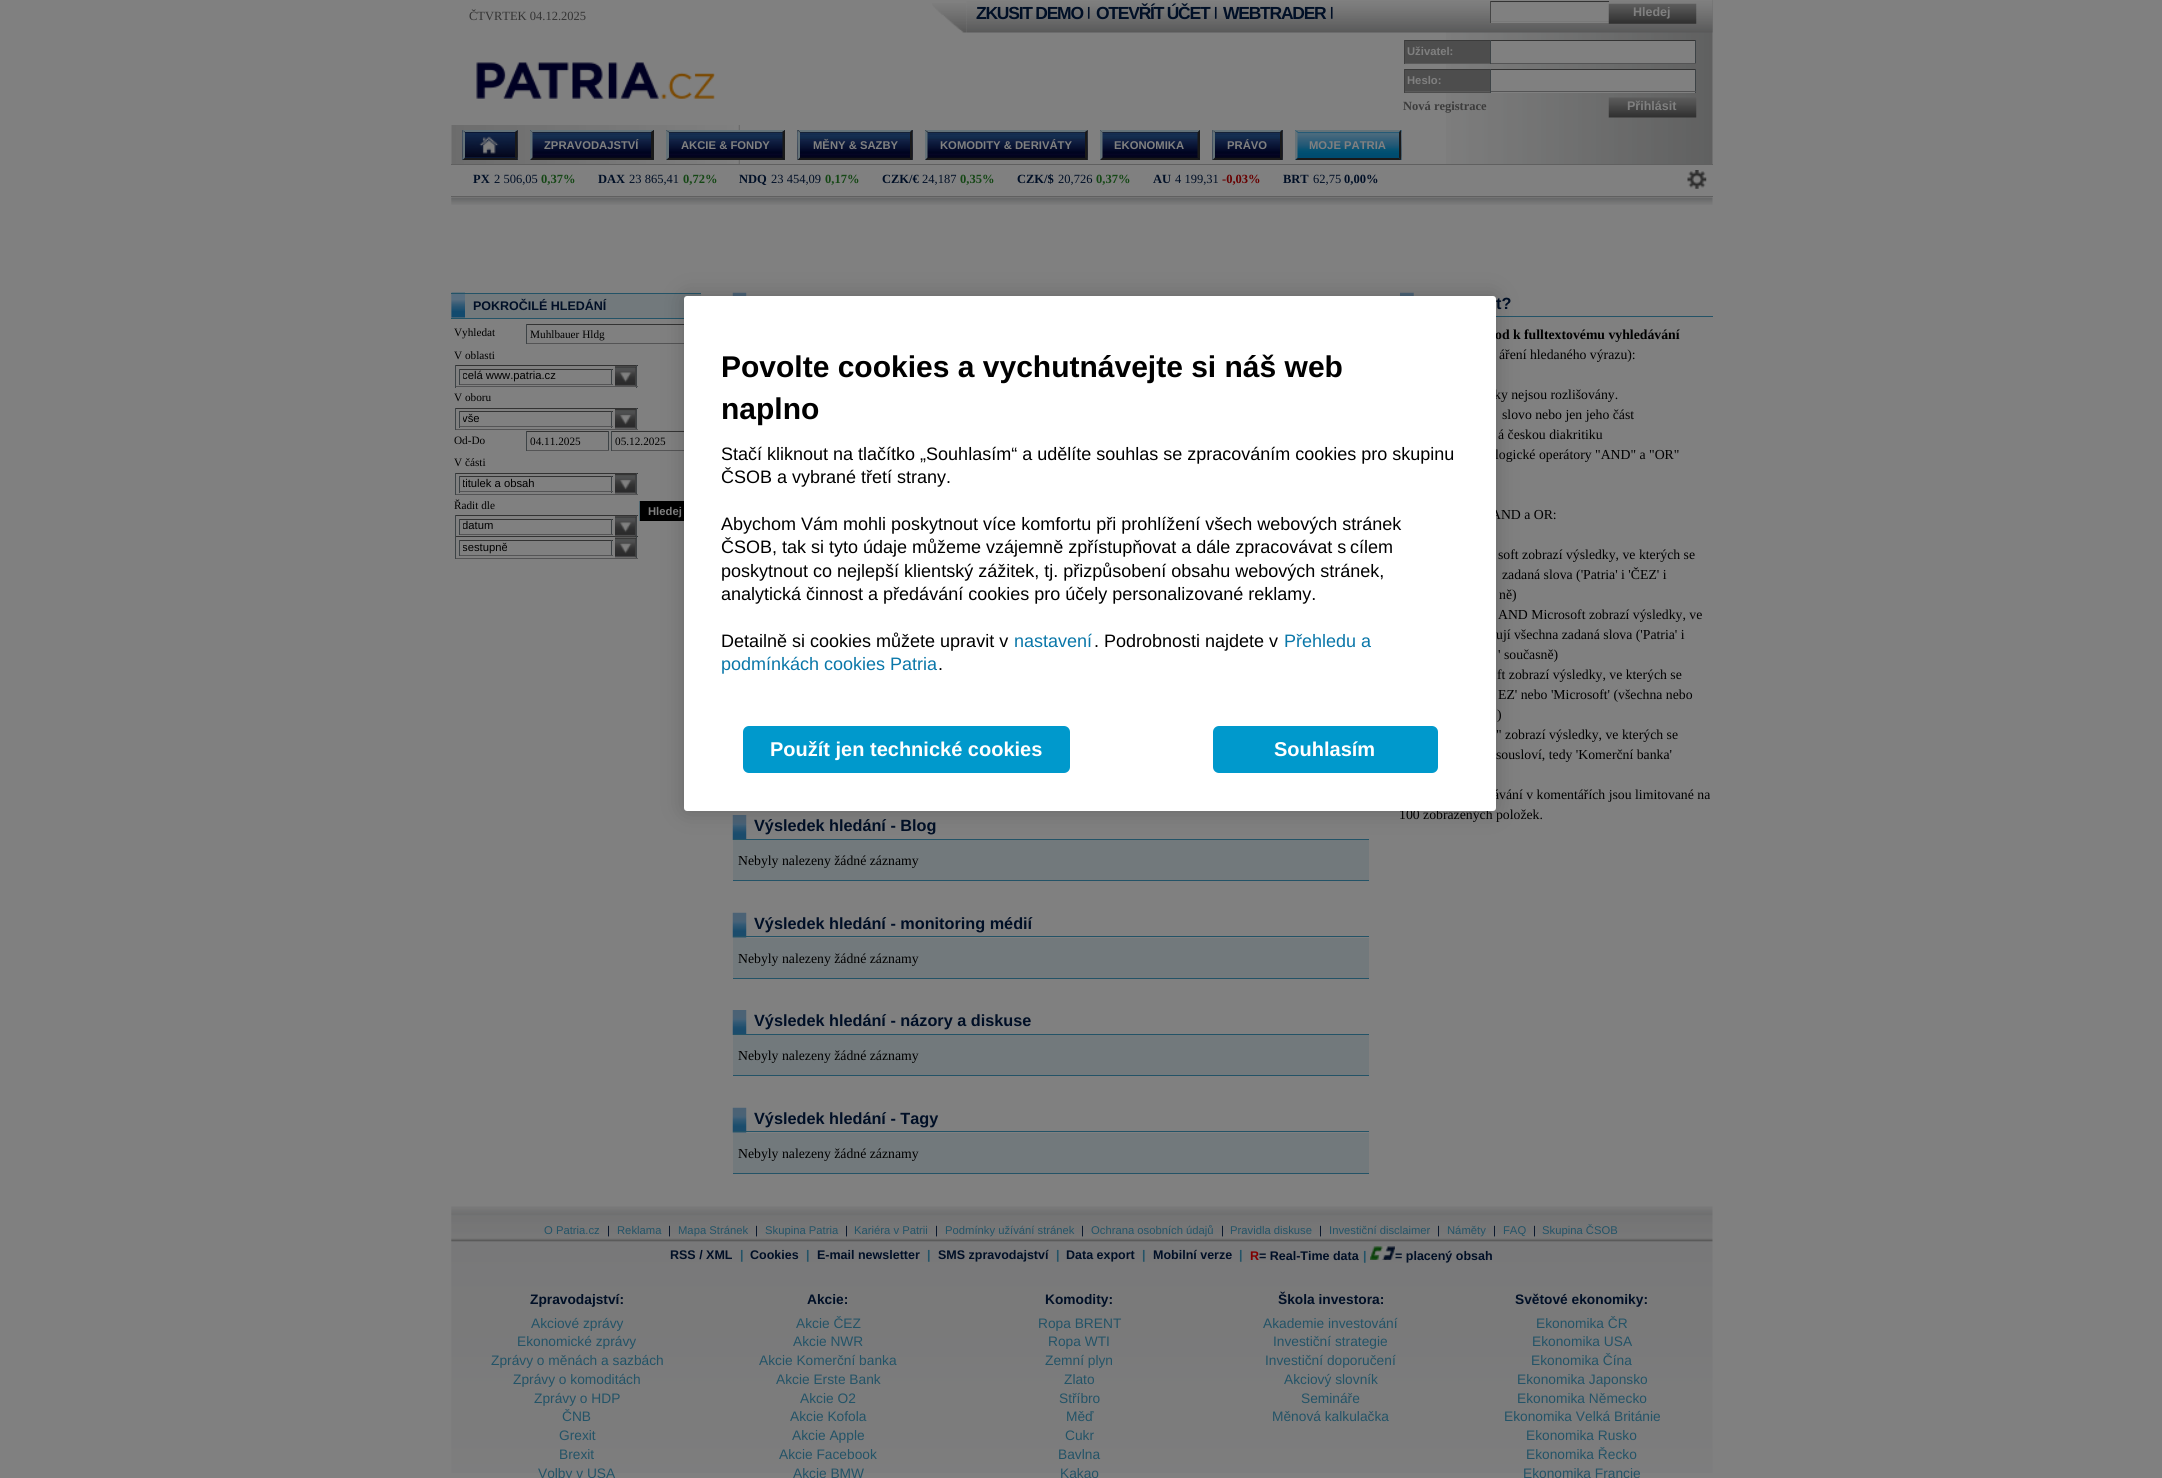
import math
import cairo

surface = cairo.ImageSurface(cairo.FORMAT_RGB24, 2162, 1478)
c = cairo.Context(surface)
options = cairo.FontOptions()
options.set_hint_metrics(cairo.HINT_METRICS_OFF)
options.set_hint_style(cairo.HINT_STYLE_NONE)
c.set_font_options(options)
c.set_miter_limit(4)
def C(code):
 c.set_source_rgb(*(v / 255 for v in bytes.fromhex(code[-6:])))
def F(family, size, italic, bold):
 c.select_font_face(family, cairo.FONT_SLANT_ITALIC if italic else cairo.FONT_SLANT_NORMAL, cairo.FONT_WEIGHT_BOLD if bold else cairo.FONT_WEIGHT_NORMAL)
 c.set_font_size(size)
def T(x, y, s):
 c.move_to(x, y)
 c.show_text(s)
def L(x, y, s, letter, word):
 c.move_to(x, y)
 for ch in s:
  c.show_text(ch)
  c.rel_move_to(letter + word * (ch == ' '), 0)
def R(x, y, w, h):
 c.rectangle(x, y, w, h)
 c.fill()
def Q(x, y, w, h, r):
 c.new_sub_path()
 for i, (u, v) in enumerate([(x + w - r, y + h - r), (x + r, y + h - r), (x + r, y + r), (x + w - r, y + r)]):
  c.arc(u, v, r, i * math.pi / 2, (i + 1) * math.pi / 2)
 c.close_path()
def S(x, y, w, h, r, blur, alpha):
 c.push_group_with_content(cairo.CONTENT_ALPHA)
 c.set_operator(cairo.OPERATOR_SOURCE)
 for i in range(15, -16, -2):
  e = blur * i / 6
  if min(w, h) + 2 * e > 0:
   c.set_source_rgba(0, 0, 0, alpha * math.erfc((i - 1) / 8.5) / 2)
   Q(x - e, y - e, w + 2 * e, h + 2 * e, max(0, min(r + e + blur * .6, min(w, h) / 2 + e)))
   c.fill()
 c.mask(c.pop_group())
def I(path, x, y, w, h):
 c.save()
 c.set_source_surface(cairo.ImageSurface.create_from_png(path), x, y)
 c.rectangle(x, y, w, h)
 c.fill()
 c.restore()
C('808080')
c.paint()
F('Liberation Serif',12.5,0,0)
C('333333')
T(469,20,'ČTVRTEK 04.12.2025')
I('1.png',476,62,239,37)
I('2.png',1446,0,267,125)
I('4.png',966,0,747,33)
I('3.png',932,3,35,30)
F('Liberation Sans',17.5,0,1)
C('000f26')
L(976,19,'ZKUSIT DEMO',-1.25,0)
F('Liberation Sans',12.5,0,1)
T(1087,16,'|')
F('Liberation Sans',17.5,0,1)
L(1096,19,'OTEVŘÍT ÚČET',-1.25,0)
F('Liberation Sans',12.5,0,1)
T(1214,16,'|')
F('Liberation Sans',17.5,0,1)
L(1223,19,'WEBTRADER',-1.25,0)
F('Liberation Sans',12.5,0,1)
T(1330,16,'|')
C('808080')
R(1491,3,118,20)
C('333333')
R(1490,1,119,1)
C('797979')
R(1490,21,119,1)
C('454545')
R(1490,1,1,22)
I('5.png',1608,3,89,21)
C('808080')
T(1633,16,'Hledej')
C('4d4d4d')
R(1405,41,85,22)
C('3a3a3a')
R(1404,40,86,1)
C('5a5a5a')
R(1404,63,86,1)
C('404040')
R(1404,40,1,24)
F('Liberation Sans',11.25,0,1)
C('808080')
T(1407,55,'Uživatel:')
R(1491,41,204,22)
C('333333')
R(1490,40,206,1)
C('3d4346')
R(1695,40,1,24)
C('545455')
R(1490,63,206,1)
C('3d4346')
R(1490,40,1,24)
C('4d4d4d')
R(1405,70,85,23)
C('3a3a3a')
R(1404,69,86,1)
C('5a5a5a')
R(1404,91,86,1)
C('404040')
R(1404,69,1,24)
C('808080')
T(1407,84,'Heslo:')
R(1491,70,204,23)
C('333333')
R(1490,69,206,1)
C('3d4346')
R(1695,69,1,24)
C('545455')
R(1490,91,206,1)
C('3d4346')
R(1490,69,1,24)
F('Liberation Serif',12.5,0,1)
C('3c3c3c')
T(1403,110,'Nová registrace')
I('6.png',1608,97,89,21)
F('Liberation Sans',12.5,0,1)
C('808080')
T(1627,110,'Přihlásit')
I('7.png',451,125,289,39)
I('8.png',1446,125,267,39)
C('606060')
R(451,164,1262,1)
I('9.png',462,130,56,30)
I('10.png',462,130,56,30)
C('647278')
c.new_path()
c.move_to(462,130)
c.line_to(518,130)
c.line_to(515,132)
c.line_to(465,132)
c.close_path()
c.fill()
C('191919')
c.new_path()
c.move_to(517.5,130)
c.line_to(517.5,160)
c.line_to(515,157.5)
c.line_to(515,132.5)
c.close_path()
c.fill()
c.new_path()
c.move_to(518,160)
c.line_to(462,160)
c.line_to(465,158)
c.line_to(515,158)
c.close_path()
c.fill()
C('647278')
c.new_path()
c.move_to(462.5,160)
c.line_to(462.5,130)
c.line_to(465,132.5)
c.line_to(465,157.5)
c.close_path()
c.fill()
I('11.png',653,130,1,30)
I('12.png',530,130,124,30)
c.new_path()
c.move_to(530,130)
c.line_to(654,130)
c.line_to(651,132)
c.line_to(532,132)
c.close_path()
c.fill()
C('191919')
c.new_path()
c.move_to(654,130)
c.line_to(654,160)
c.line_to(651,157.5)
c.line_to(651,132.5)
c.close_path()
c.fill()
c.new_path()
c.move_to(654,160)
c.line_to(530,160)
c.line_to(532,158)
c.line_to(651,158)
c.close_path()
c.fill()
C('647278')
c.new_path()
c.move_to(530,160)
c.line_to(530,130)
c.line_to(532.5,132.5)
c.line_to(532.5,157.5)
c.close_path()
c.fill()
F('Liberation Sans',11.25,0,1)
C('808080')
T(544,149,'ZPRAVODAJSTVÍ')
I('13.png',666,130,1,30)
I('14.png',666,130,119,30)
C('647278')
c.new_path()
c.move_to(666,130)
c.line_to(785,130)
c.line_to(782,132)
c.line_to(669,132)
c.close_path()
c.fill()
C('191919')
c.new_path()
c.move_to(785,130)
c.line_to(785,160)
c.line_to(782.5,157.5)
c.line_to(782.5,132.5)
c.close_path()
c.fill()
c.new_path()
c.move_to(785,160)
c.line_to(666,160)
c.line_to(669,158)
c.line_to(782,158)
c.close_path()
c.fill()
C('647278')
c.new_path()
c.move_to(666,160)
c.line_to(666,130)
c.line_to(669,132.5)
c.line_to(669,157.5)
c.close_path()
c.fill()
C('808080')
T(681,149,'AKCIE & FONDY')
I('15.png',797,130,116,30)
I('16.png',797,130,116,30)
C('647278')
c.new_path()
c.move_to(798,130)
c.line_to(912,130)
c.line_to(910,132)
c.line_to(800,132)
c.close_path()
c.fill()
C('191919')
c.new_path()
c.move_to(912.5,130)
c.line_to(912.5,160)
c.line_to(910,157.5)
c.line_to(910,132.5)
c.close_path()
c.fill()
c.new_path()
c.move_to(912,160)
c.line_to(798,160)
c.line_to(800,158)
c.line_to(910,158)
c.close_path()
c.fill()
C('647278')
c.new_path()
c.move_to(797.5,160)
c.line_to(797.5,130)
c.line_to(800,132.5)
c.line_to(800,157.5)
c.close_path()
c.fill()
C('808080')
T(813,149,'MĚNY & SAZBY')
I('17.png',1087,130,1,30)
I('18.png',925,130,163,30)
C('647278')
c.new_path()
c.move_to(925,130)
c.line_to(1088,130)
c.line_to(1085,132)
c.line_to(928,132)
c.close_path()
c.fill()
C('191919')
c.new_path()
c.move_to(1087.5,130)
c.line_to(1087.5,160)
c.line_to(1085,157.5)
c.line_to(1085,132.5)
c.close_path()
c.fill()
c.new_path()
c.move_to(1088,160)
c.line_to(925,160)
c.line_to(928,158)
c.line_to(1085,158)
c.close_path()
c.fill()
C('647278')
c.new_path()
c.move_to(925,160)
c.line_to(925,130)
c.line_to(927.5,132.5)
c.line_to(927.5,157.5)
c.close_path()
c.fill()
C('808080')
T(940,149,'KOMODITY & DERIVÁTY')
I('19.png',1100,130,100,30)
C('647278')
c.new_path()
c.move_to(1100,130)
c.line_to(1200,130)
c.line_to(1198,132)
c.line_to(1102,132)
c.close_path()
c.fill()
C('191919')
c.new_path()
c.move_to(1200,130)
c.line_to(1200,160)
c.line_to(1197.5,157.5)
c.line_to(1197.5,132.5)
c.close_path()
c.fill()
c.new_path()
c.move_to(1200,160)
c.line_to(1100,160)
c.line_to(1102,158)
c.line_to(1198,158)
c.close_path()
c.fill()
C('647278')
c.new_path()
c.move_to(1100,160)
c.line_to(1100,130)
c.line_to(1102.5,132.5)
c.line_to(1102.5,157.5)
c.close_path()
c.fill()
C('808080')
T(1114,149,'EKONOMIKA')
I('20.png',1212,130,71,30)
I('21.png',1212,130,71,30)
C('647278')
c.new_path()
c.move_to(1212,130)
c.line_to(1282,130)
c.line_to(1280,132)
c.line_to(1215,132)
c.close_path()
c.fill()
C('191919')
c.new_path()
c.move_to(1282.5,130)
c.line_to(1282.5,160)
c.line_to(1280,157.5)
c.line_to(1280,132.5)
c.close_path()
c.fill()
c.new_path()
c.move_to(1282,160)
c.line_to(1212,160)
c.line_to(1215,158)
c.line_to(1280,158)
c.close_path()
c.fill()
C('647278')
c.new_path()
c.move_to(1212.5,160)
c.line_to(1212.5,130)
c.line_to(1215,132.5)
c.line_to(1215,157.5)
c.close_path()
c.fill()
C('808080')
T(1227,149,'PRÁVO')
I('22.png',1401,130,1,30)
I('23.png',1295,130,107,30)
C('647278')
c.new_path()
c.move_to(1295,130)
c.line_to(1401,130)
c.line_to(1399,132)
c.line_to(1298,132)
c.close_path()
c.fill()
C('191919')
c.new_path()
c.move_to(1401,130)
c.line_to(1401,160)
c.line_to(1399,157.5)
c.line_to(1399,132.5)
c.close_path()
c.fill()
c.new_path()
c.move_to(1401,160)
c.line_to(1295,160)
c.line_to(1298,158)
c.line_to(1399,158)
c.close_path()
c.fill()
C('647278')
c.new_path()
c.move_to(1295,160)
c.line_to(1295,130)
c.line_to(1297.5,132.5)
c.line_to(1297.5,157.5)
c.close_path()
c.fill()
C('808080')
T(1309,149,'MOJE PATRIA')
C('606060')
R(451,196,1262,1)
F('Liberation Serif',12.5,0,1)
C('000f26')
T(473,183,'PX')
F('Liberation Serif',12.5,0,0)
T(494,183,'2 506,05')
F('Liberation Serif',12.5,0,1)
C('154715')
T(541,183,'0,37%')
C('000f26')
T(598,183,'DAX')
F('Liberation Serif',12.5,0,0)
T(629,183,'23 865,41')
F('Liberation Serif',12.5,0,1)
C('154715')
T(683,183,'0,72%')
C('000f26')
T(739,183,'NDQ')
F('Liberation Serif',12.5,0,0)
T(771,183,'23 454,09')
F('Liberation Serif',12.5,0,1)
C('154715')
T(825,183,'0,17%')
C('000f26')
T(882,183,'CZK/€')
F('Liberation Serif',12.5,0,0)
T(922,183,'24,187')
F('Liberation Serif',12.5,0,1)
C('154715')
T(960,183,'0,35%')
C('000f26')
T(1017,183,'CZK/$')
F('Liberation Serif',12.5,0,0)
T(1058,183,'20,726')
F('Liberation Serif',12.5,0,1)
C('154715')
T(1096,183,'0,37%')
C('000f26')
T(1153,183,'AU')
F('Liberation Serif',12.5,0,0)
T(1175,183,'4 199,31')
F('Liberation Serif',12.5,0,1)
C('670000')
T(1222,183,'-0,03%')
C('000f26')
T(1283,183,'BRT')
F('Liberation Serif',12.5,0,0)
T(1313,183,'62,75')
F('Liberation Serif',12.5,0,1)
T(1344,183,'0,00%')
I('24.png',1687,170,20,19)
I('25.png',451,197,1262,8)
C('72797c')
R(451,294,250,24)
I('26.png',451,292,14,26)
C('235367')
R(451,293,250,1)
F('Liberation Sans',12.5,0,1)
C('000f26')
T(473,310,'POKROČILÉ HLEDÁNÍ')
C('235367')
R(451,318,233,1)
F('Liberation Serif',11.25,0,0)
C('000000')
T(454,336,'Vyhledat')
C('333333')
R(526,324,158,1)
C('545455')
R(526,343,158,1)
C('3d4346')
R(526,324,1,20)
C('000000')
T(530,338,'Muhlbauer Hldg')
T(454,359,'V oblasti')
C('333333')
R(455,365,183,1)
C('3d4346')
R(636,365,1,23)
C('545455')
R(455,386,183,1)
I('27.png',615,366,22,21)
C('3d4346')
R(455,365,1,23)
C('333333')
R(459,369,154,1)
C('3d4346')
R(611,369,1,16)
C('545455')
R(459,384,154,1)
C('3d4346')
R(459,369,1,16)
c.save()
c.rectangle(463,370,146,14)
c.clip()
F('Liberation Sans',11.25,0,0)
C('000000')
T(462,379,'celá www.patria.cz')
c.restore()
C('000000')
T(454,401,'V oboru')
C('333333')
R(455,408,183,1)
C('3d4346')
R(636,408,1,22)
C('545455')
R(455,429,183,1)
I('28.png',615,409,22,20)
C('3d4346')
R(455,408,1,22)
C('333333')
R(459,411,154,1)
C('3d4346')
R(611,411,1,17)
C('545455')
R(459,426,154,1)
C('3d4346')
R(459,411,1,17)
c.save()
c.rectangle(463,413,146,13)
c.clip()
F('Liberation Sans',11.25,0,0)
C('000000')
T(462,422,'vše')
c.restore()
C('000000')
T(454,444,'Od-Do')
C('333333')
R(526,431,83,1)
C('3d4346')
R(608,431,1,20)
C('545455')
R(526,450,83,1)
C('3d4346')
R(526,431,1,20)
C('000000')
T(530,445,'04.11.2025')
C('333333')
R(611,431,73,1)
C('545455')
R(611,450,73,1)
C('3d4346')
R(611,431,1,20)
C('000000')
T(615,445,'05.12.2025')
T(454,466,'V části')
C('333333')
R(455,473,183,1)
C('3d4346')
R(636,473,1,22)
C('545455')
R(455,494,183,1)
I('28.png',615,474,22,20)
C('3d4346')
R(455,473,1,22)
C('333333')
R(459,476,154,1)
C('3d4346')
R(611,476,1,17)
C('545455')
R(459,491,154,1)
C('3d4346')
R(459,476,1,17)
c.save()
c.rectangle(463,478,146,13)
c.clip()
F('Liberation Sans',11.25,0,0)
C('000000')
T(462,487,'titulek a obsah')
c.restore()
C('000000')
T(454,509,'Řadit dle')
C('333333')
R(455,515,183,1)
C('3d4346')
R(636,515,1,23)
R(455,515,1,23)
C('333333')
R(455,536,183,1)
C('808080')
R(636,537,1,1)
C('3d4346')
R(636,536,1,23)
I('29.png',615,516,22,21)
C('333333')
R(459,519,154,1)
C('3d4346')
R(611,519,1,16)
C('545455')
R(459,534,154,1)
C('3d4346')
R(459,519,1,16)
c.save()
c.rectangle(463,520,146,14)
c.clip()
F('Liberation Sans',11.25,0,0)
C('000000')
T(462,529,'datum')
c.restore()
C('545455')
R(455,558,183,1)
I('30.png',615,537,22,21)
C('3d4346')
R(455,536,1,23)
C('333333')
R(459,540,154,1)
C('3d4346')
R(611,540,1,16)
C('545455')
R(459,555,154,1)
C('3d4346')
R(459,540,1,16)
c.save()
c.rectangle(463,541,146,14)
c.clip()
F('Liberation Sans',11.25,0,0)
C('000000')
T(462,551,'sestupně')
c.restore()
C('000000')
R(640,501,44,20)
C('516973')
R(639,501,1,20)
F('Liberation Sans',11.25,0,1)
C('808080')
T(648,515,'Hledej')
I('31.png',1400,292,14,4)
C('235367')
R(1496,316,217,1)
F('Liberation Sans',16.25,0,1)
C('000f26')
T(1496,309,'t?')
F('Liberation Serif',13.75,0,1)
C('000000')
T(1495,339,'od k fulltextovému vyhledávání')
F('Liberation Serif',13.75,0,0)
T(1499,359,'áření hledaného výrazu):')
T(1494,399,'ky nejsou rozlišovány.')
T(1502,419,'slovo nebo jen jeho část')
T(1498,439,'á českou diakritiku')
T(1495,459,'logické operátory "AND" a "OR"')
T(1491,519,'AND a OR:')
T(1498,559,'soft zobrazí výsledky, ve kterých se')
T(1502,579,'zadaná slova (\'Patria\' i \'ČEZ\' i')
T(1499,599,'ně)')
T(1498,619,'AND Microsoft zobrazí výsledky, ve')
T(1496,639,'ují všechna zadaná slova (\'Patria\' i')
T(1498,659,'\' současně)')
T(1497,679,'ft zobrazí výsledky, ve kterých se')
T(1498,699,'EZ\' nebo \'Microsoft\' (všechna nebo')
T(1497,719,')')
T(1496,739,'" zobrazí výsledky, ve kterých se')
T(1496,759,'sousloví, tedy \'Komerční banka\'')
T(1493,799,'ávání v komentářích jsou limitované na')
T(1399,819,'100 zobrazených položek.')
I('32.png',732,292,15,4)
I('33.png',732,815,15,25)
C('235367')
R(733,839,636,1)
F('Liberation Sans',16.25,0,1)
C('000f26')
T(754,831,'Výsledek hledání - Blog')
C('72797c')
R(733,840,636,40)
C('235367')
R(733,880,636,1)
F('Liberation Serif',13.75,0,0)
C('000000')
T(738,865,'Nebyly nalezeny žádné záznamy')
I('34.png',732,912,15,26)
C('235367')
R(733,936,636,1)
F('Liberation Sans',16.25,0,1)
C('000f26')
T(754,929,'Výsledek hledání - monitoring médií')
C('72797c')
R(733,938,636,40)
C('235367')
R(733,978,636,1)
F('Liberation Serif',13.75,0,0)
C('000000')
T(738,963,'Nebyly nalezeny žádné záznamy')
I('33.png',732,1010,15,25)
C('235367')
R(733,1034,636,1)
F('Liberation Sans',16.25,0,1)
C('000f26')
T(754,1026,'Výsledek hledání - názory a diskuse')
C('72797c')
R(733,1035,636,40)
C('235367')
R(733,1075,636,1)
F('Liberation Serif',13.75,0,0)
C('000000')
T(738,1060,'Nebyly nalezeny žádné záznamy')
I('34.png',732,1107,15,26)
C('235367')
R(733,1131,636,1)
F('Liberation Sans',16.25,0,1)
C('000f26')
T(754,1124,'Výsledek hledání - Tagy')
C('72797c')
R(733,1133,636,40)
C('235367')
R(733,1173,636,1)
F('Liberation Serif',13.75,0,0)
C('000000')
T(738,1158,'Nebyly nalezeny žádné záznamy')
I('35.png',451,1206,1262,267)
F('Liberation Sans',11.25,0,0)
C('235367')
T(544,1234,'O Patria.cz')
C('000f26')
T(607,1234,'|')
C('235367')
T(617,1234,'Reklama')
C('000f26')
T(668,1234,'|')
C('235367')
T(678,1234,'Mapa Stránek')
C('000f26')
T(755,1234,'|')
C('235367')
T(765,1234,'Skupina Patria')
C('000f26')
T(845,1234,'|')
C('235367')
T(854,1234,'Kariéra v Patrii')
C('000f26')
T(935,1234,'|')
C('235367')
T(945,1234,'Podmínky užívání stránek')
C('000f26')
T(1081,1234,'|')
C('235367')
T(1091,1234,'Ochrana osobních údajů')
C('000f26')
T(1221,1234,'|')
C('235367')
T(1230,1234,'Pravidla diskuse')
C('000f26')
T(1319,1234,'|')
C('235367')
T(1329,1234,'Investiční disclaimer')
C('000f26')
T(1437,1234,'|')
C('235367')
T(1447,1234,'Náměty')
C('000f26')
T(1493,1234,'|')
C('235367')
T(1503,1234,'FAQ')
C('000f26')
T(1533,1234,'|')
C('235367')
T(1542,1234,'Skupina ČSOB')
F('Liberation Sans',12.5,0,1)
C('000f26')
T(670,1259,'RSS / XML')
C('235367')
T(740,1259,'|')
C('000f26')
T(750,1259,'Cookies')
C('235367')
T(806,1259,'|')
C('000f26')
T(817,1259,'E-mail newsletter')
C('235367')
T(927,1259,'|')
C('000f26')
T(938,1259,'SMS zpravodajství')
C('235367')
T(1056,1259,'|')
C('000f26')
T(1066,1259,'Data export')
C('235367')
T(1142,1259,'|')
C('000f26')
T(1153,1259,'Mobilní verze')
C('235367')
T(1239,1259,'|')
C('800000')
T(1250,1260,'R')
C('000f26')
T(1259,1260,'= Real-Time data')
C('235367')
T(1363,1260,'|')
I('36.png',1370,1246,25,14)
C('000f26')
T(1395,1260,'= placený obsah')
F('Liberation Sans',13.75,0,1)
T(530,1304,'Zpravodajství:')
F('Liberation Sans',13.75,0,0)
C('235367')
T(531,1328,'Akciové zprávy')
T(517,1346,'Ekonomické zprávy')
T(491,1365,'Zprávy o měnách a sazbách')
T(513,1384,'Zprávy o komoditách')
T(534,1403,'Zprávy o HDP')
T(562,1421,'ČNB')
T(559,1440,'Grexit')
T(559,1459,'Brexit')
T(538,1478,'Volby v USA')
F('Liberation Sans',13.75,0,1)
C('000f26')
T(807,1304,'Akcie:')
F('Liberation Sans',13.75,0,0)
C('235367')
T(796,1328,'Akcie ČEZ')
T(793,1346,'Akcie NWR')
T(759,1365,'Akcie Komerční banka')
T(776,1384,'Akcie Erste Bank')
T(800,1403,'Akcie O2')
T(790,1421,'Akcie Kofola')
T(792,1440,'Akcie Apple')
T(779,1459,'Akcie Facebook')
T(793,1478,'Akcie BMW')
F('Liberation Sans',13.75,0,1)
C('000f26')
T(1045,1304,'Komodity:')
F('Liberation Sans',13.75,0,0)
C('235367')
T(1038,1328,'Ropa BRENT')
T(1048,1346,'Ropa WTI')
T(1045,1365,'Zemní plyn')
T(1064,1384,'Zlato')
T(1059,1403,'Stříbro')
T(1066,1421,'Měď')
T(1065,1440,'Cukr')
T(1058,1459,'Bavlna')
T(1060,1478,'Kakao')
F('Liberation Sans',13.75,0,1)
C('000f26')
T(1278,1304,'Škola investora:')
F('Liberation Sans',13.75,0,0)
C('235367')
T(1263,1328,'Akademie investování')
T(1273,1346,'Investiční strategie')
T(1265,1365,'Investiční doporučení')
T(1284,1384,'Akciový slovník')
T(1301,1403,'Semináře')
T(1272,1421,'Měnová kalkulačka')
F('Liberation Sans',13.75,0,1)
C('000f26')
T(1515,1304,'Světové ekonomiky:')
F('Liberation Sans',13.75,0,0)
C('235367')
T(1536,1328,'Ekonomika ČR')
T(1532,1346,'Ekonomika USA')
T(1531,1365,'Ekonomika Čína')
T(1517,1384,'Ekonomika Japonsko')
T(1517,1403,'Ekonomika Německo')
T(1504,1421,'Ekonomika Velká Británie')
T(1526,1440,'Ekonomika Rusko')
T(1526,1459,'Ekonomika Řecko')
T(1523,1478,'Ekonomika Francie')
C('000000')
S(684,296,812,515,3,11,.2)
C('ffffff')
Q(684,296,812,515,3)
c.fill()
F('Liberation Sans',30,0,1)
C('000000')
T(721,377,'Povolte cookies a vychutnávejte si náš web')
T(721,419,'naplno')
F('Liberation Sans',18,0,0)
T(721,460,'Stačí kliknout na tlačítko „Souhlasím“ a udělíte souhlas se zpracováním cookies pro skupinu')
T(721,483,'ČSOB a vybrané třetí strany.')
T(721,530,'Abychom Vám mohli poskytnout více komfortu při prohlížení všech webových stránek')
T(721,553,'ČSOB, tak si tyto údaje můžeme vzájemně zpřístupňovat a dále zpracovávat s cílem')
T(721,577,'poskytnout co nejlepší klientský zážitek, tj. přizpůsobení obsahu webových stránek,')
T(721,600,'analytická činnost a předávání cookies pro účely personalizované reklamy.')
T(721,647,'Detailně si cookies můžete upravit v')
C('0a77a9')
T(1014,647,'nastavení')
C('000000')
T(1094,647,'. Podrobnosti najdete v')
C('0a77a9')
T(1284,647,'Přehledu a')
T(721,670,'podmínkách cookies Patria')
C('000000')
T(938,670,'.')
C('0099cc')
Q(744.5,727.5,324,44,4.5)
c.fill_preserve()
c.set_line_width(3)
c.stroke()
F('Liberation Sans',20,0,1)
C('ffffff')
T(770,756,'Použít jen technické cookies')
C('0099cc')
Q(1214.5,727.5,222,44,4.5)
c.fill_preserve()
c.stroke()
C('ffffff')
T(1274,756,'Souhlasím')
surface.write_to_png('o.png')
